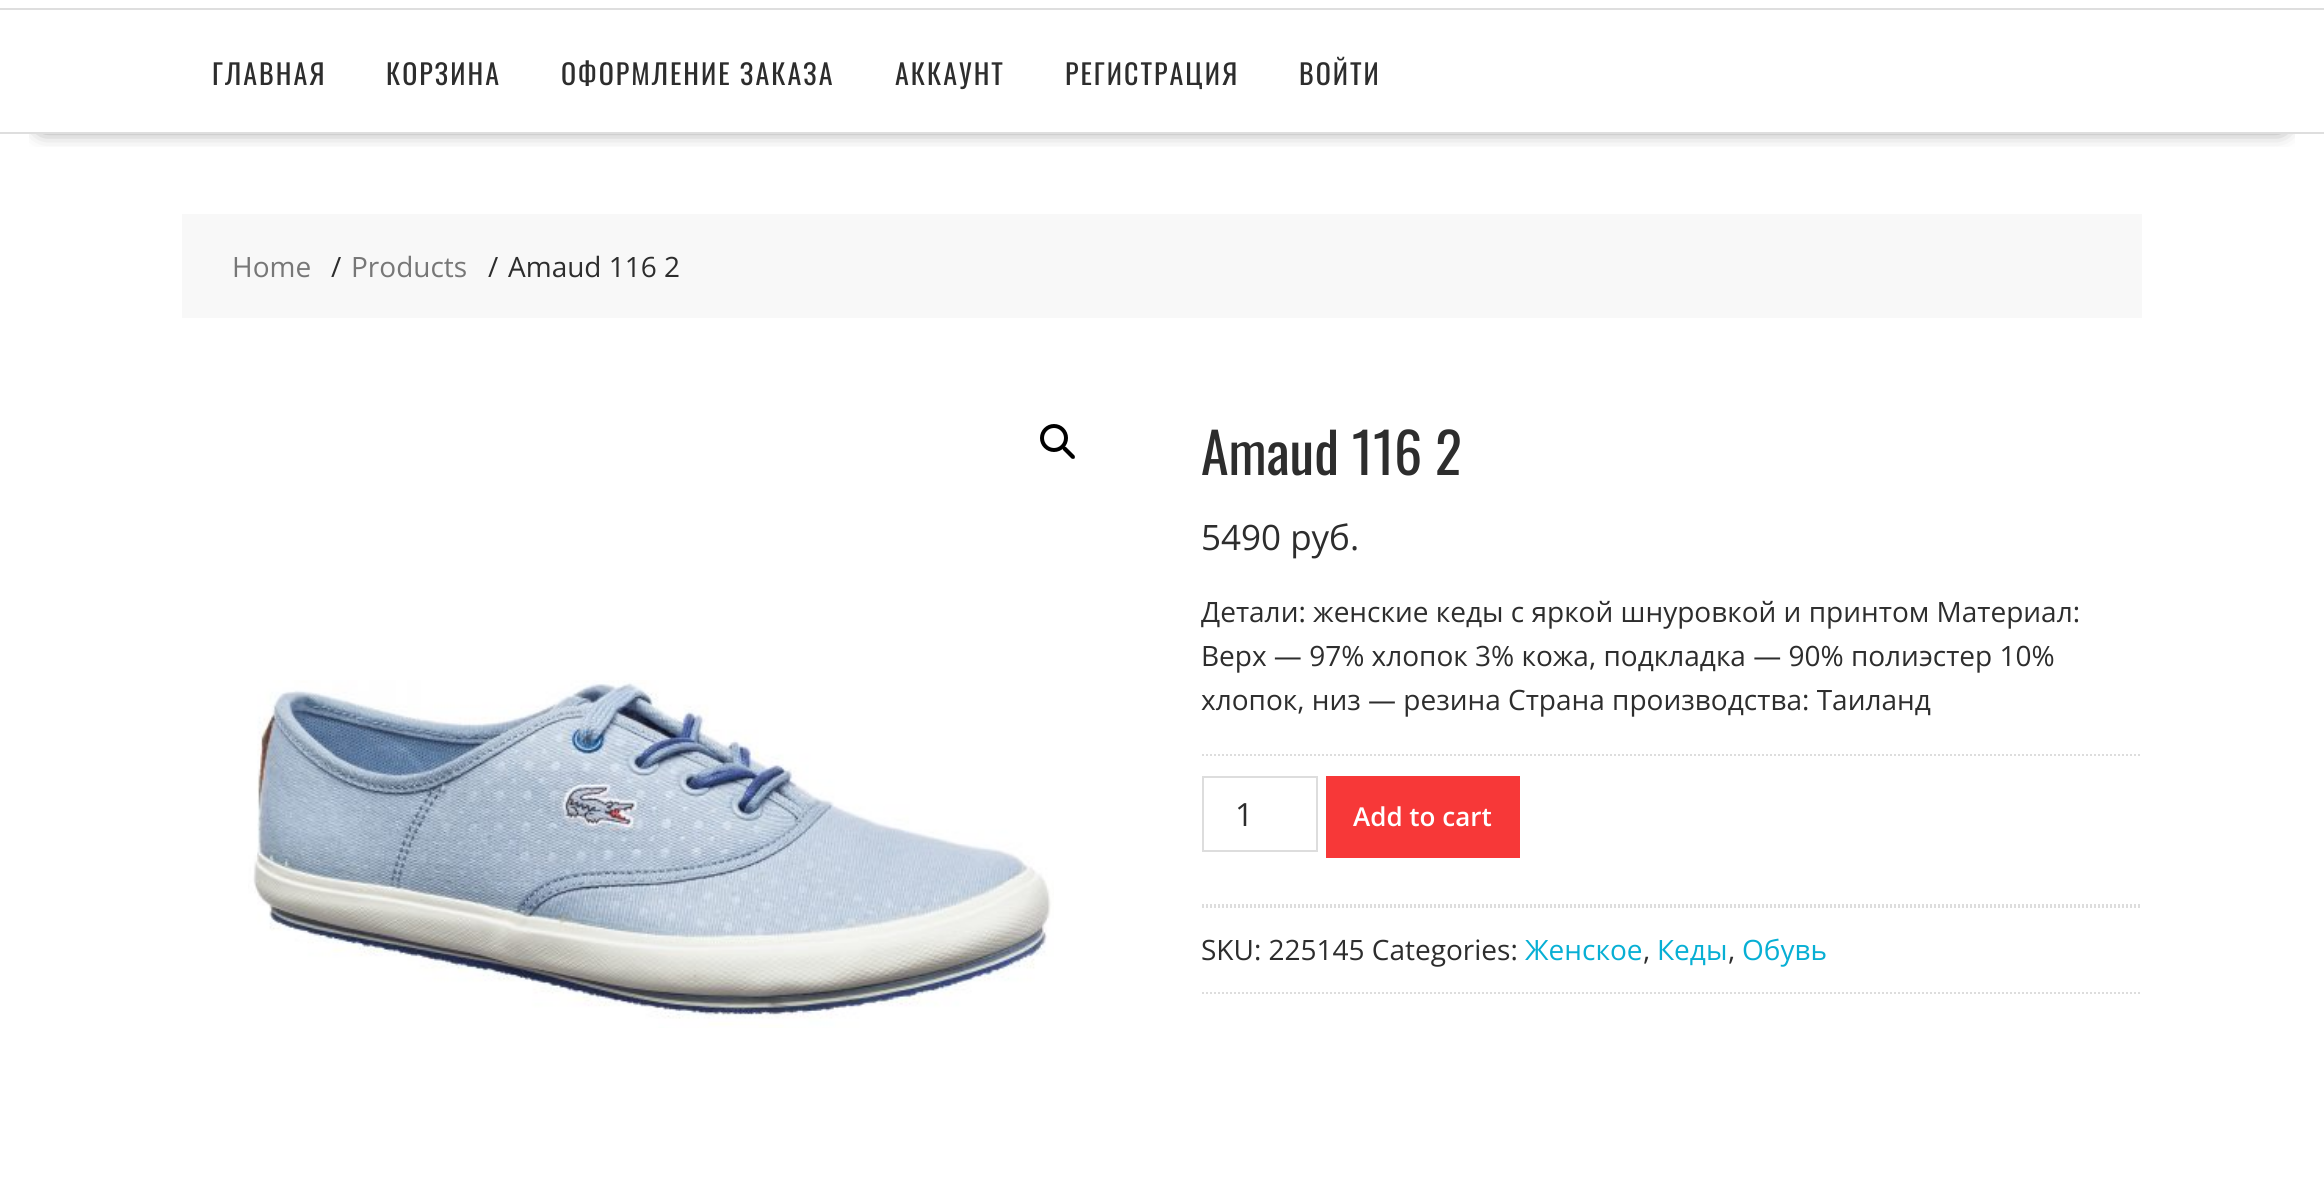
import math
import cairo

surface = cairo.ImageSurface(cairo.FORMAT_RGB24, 2324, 1180)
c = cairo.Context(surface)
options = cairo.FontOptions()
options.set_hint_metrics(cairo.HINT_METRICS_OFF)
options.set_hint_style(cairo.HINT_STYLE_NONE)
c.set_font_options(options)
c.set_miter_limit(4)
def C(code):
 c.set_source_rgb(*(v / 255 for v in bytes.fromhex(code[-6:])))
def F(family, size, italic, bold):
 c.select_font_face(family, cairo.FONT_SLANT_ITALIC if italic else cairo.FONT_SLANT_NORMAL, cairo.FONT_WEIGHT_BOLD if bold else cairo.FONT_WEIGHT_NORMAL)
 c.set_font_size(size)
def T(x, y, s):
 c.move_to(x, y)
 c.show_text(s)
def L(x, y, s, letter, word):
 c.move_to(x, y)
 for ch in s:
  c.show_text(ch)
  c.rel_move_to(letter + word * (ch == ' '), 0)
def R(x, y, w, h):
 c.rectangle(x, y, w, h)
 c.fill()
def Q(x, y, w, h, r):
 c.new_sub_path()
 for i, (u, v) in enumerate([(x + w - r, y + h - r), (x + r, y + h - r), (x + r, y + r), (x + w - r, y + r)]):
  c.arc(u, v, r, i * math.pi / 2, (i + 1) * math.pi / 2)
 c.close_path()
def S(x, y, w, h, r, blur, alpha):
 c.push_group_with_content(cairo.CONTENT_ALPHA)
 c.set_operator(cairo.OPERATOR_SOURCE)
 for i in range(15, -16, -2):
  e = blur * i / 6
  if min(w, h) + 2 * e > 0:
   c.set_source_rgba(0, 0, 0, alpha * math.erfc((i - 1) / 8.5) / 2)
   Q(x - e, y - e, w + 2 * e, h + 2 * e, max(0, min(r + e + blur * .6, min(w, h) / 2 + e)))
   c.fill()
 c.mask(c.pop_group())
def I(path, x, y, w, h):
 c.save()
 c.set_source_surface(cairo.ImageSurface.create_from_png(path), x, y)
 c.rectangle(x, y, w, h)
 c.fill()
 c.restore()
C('ffffff')
c.paint()
c.save()
c.rectangle(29,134,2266,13)
c.clip()
C('000000')
S(42,84,2240,42,0,11,.75)
c.restore()
C('dedede')
R(0,8,2324,2)
R(0,132,2324,2)
F('Oswald',28,0,0)
C('2d2d2d')
L(212,85,'ГЛАВНАЯ',2,0)
L(386,85,'КОРЗИНА',2,0)
L(561,85,'ОФОРМЛЕНИЕ ЗАКАЗА',2,0)
L(895,85,'АККАУНТ',2,0)
L(1065,85,'РЕГИСТРАЦИЯ',2,0)
L(1299,85,'ВОЙТИ',2,0)
C('f8f8f8')
R(182,214,1960,104)
F('Open Sans',28,0,0)
C('777777')
T(232,277,'Home')
C('2d2d2d')
T(331,277,'/')
C('777777')
T(351,277,'Products')
C('2d2d2d')
T(488,277,'/')
T(508,277,'Amaud 116 2')
c.new_path()
c.arc(1054,438,12,0,2 * math.pi)
C('000000')
c.set_line_width(4)
c.stroke()
c.new_path()
c.move_to(1063,447)
c.curve_to(1064,446.5,1065,446.5,1066,447)
c.line_to(1074.5,455.5)
c.curve_to(1075,456.5,1075,457.5,1074.5,458.5)
c.curve_to(1073.5,459,1072.5,459,1071.5,458.5)
c.line_to(1063,450)
c.curve_to(1062.5,449,1062.5,448,1063,447)
c.close_path()
c.fill()
I('1.png',248,680,806,348)
F('Oswald',56,0,0)
C('2d2d2d')
T(1201,475,'Amaud 116 2')
F('Open Sans',35,0,0)
T(1201,550,'5490 руб.')
F('Open Sans',28,0,0)
T(1201,622,'Детали: женские кеды с яркой шнуровкой и принтом Материал:')
T(1201,666,'Верх — 97% хлопок 3% кожа, подкладка — 90% полиэстер 10%')
T(1201,710,'хлопок, низ — резина Страна производства: Таиланд')
c.new_path()
c.move_to(1202,755)
c.line_to(2142,755)
C('dddddd')
c.set_line_width(2)
c.set_dash([2,2])
c.stroke()
c.new_path()
c.move_to(1202,905)
c.line_to(2142,905)
c.stroke()
c.rectangle(1203,777,114,74)
c.set_dash([])
c.stroke()
F('Open Sans',32,0,0)
C('2d2d2d')
T(1235,826,'1')
C('f73838')
R(1326,776,194,82)
F('Open Sans SemiBold',26,0,0)
C('ffffff')
T(1353,826,'Add to cart')
c.new_path()
c.move_to(1202,907)
c.line_to(2142,907)
C('dddddd')
c.set_dash([2,2])
c.stroke()
c.new_path()
c.move_to(1202,993)
c.line_to(2142,993)
c.stroke()
F('Open Sans',28,0,0)
C('2d2d2d')
T(1201,960,'SKU: 225145 Categories:')
C('07afd4')
T(1525,960,'Женское')
C('2d2d2d')
T(1643,960,',')
C('07afd4')
T(1657,960,'Кеды')
C('2d2d2d')
T(1728,960,',')
C('07afd4')
T(1742,960,'Обувь')
surface.write_to_png('o.png')
